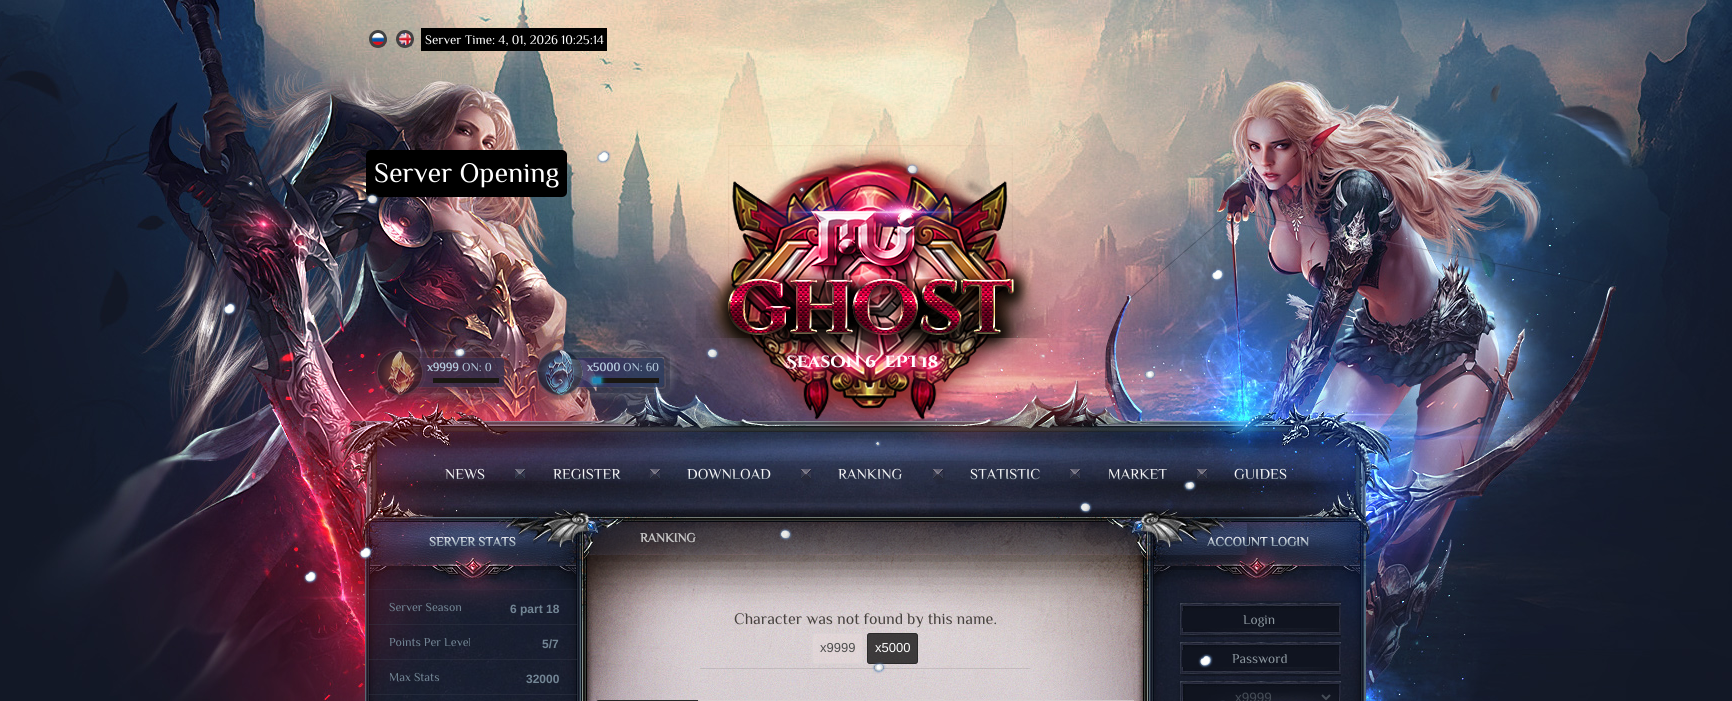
import math
import cairo

surface = cairo.ImageSurface(cairo.FORMAT_RGB24, 1732, 701)
c = cairo.Context(surface)
options = cairo.FontOptions()
options.set_hint_metrics(cairo.HINT_METRICS_OFF)
options.set_hint_style(cairo.HINT_STYLE_NONE)
c.set_font_options(options)
c.set_miter_limit(4)
def C(code):
 c.set_source_rgb(*(v / 255 for v in bytes.fromhex(code[-6:])))
def F(family, size, italic, bold):
 c.select_font_face(family, cairo.FONT_SLANT_ITALIC if italic else cairo.FONT_SLANT_NORMAL, cairo.FONT_WEIGHT_BOLD if bold else cairo.FONT_WEIGHT_NORMAL)
 c.set_font_size(size)
def T(x, y, s):
 c.move_to(x, y)
 c.show_text(s)
def R(x, y, w, h):
 c.rectangle(x, y, w, h)
 c.fill()
def Q(x, y, w, h, r):
 c.new_sub_path()
 for i, (u, v) in enumerate([(x + w - r, y + h - r), (x + r, y + h - r), (x + r, y + r), (x + w - r, y + r)]):
  c.arc(u, v, r, i * math.pi / 2, (i + 1) * math.pi / 2)
 c.close_path()
def S(x, y, w, h, r, blur, alpha):
 c.push_group_with_content(cairo.CONTENT_ALPHA)
 c.set_operator(cairo.OPERATOR_SOURCE)
 for i in range(15, -16, -2):
  e = blur * i / 6
  if min(w, h) + 2 * e > 0:
   c.set_source_rgba(0, 0, 0, alpha * math.erfc((i - 1) / 8.5) / 2)
   Q(x - e, y - e, w + 2 * e, h + 2 * e, max(0, min(r + e + blur * .6, min(w, h) / 2 + e)))
   c.fill()
 c.mask(c.pop_group())
def I(path, x, y, w, h):
 c.save()
 c.set_source_surface(cairo.ImageSurface.create_from_png(path), x, y)
 c.rectangle(x, y, w, h)
 c.fill()
 c.restore()
C('ffffff')
c.paint()
I('1.png',0,0,1732,701)
I('2.png',366,0,1000,518)
I('3.png',371,32,16,15)
c.arc(378,39,7.5,0,2 * math.pi)
C('424242')
c.set_line_width(3)
c.stroke()
I('4.png',398,32,16,15)
c.arc(405,39,7.5,0,2 * math.pi)
c.stroke()
C('000000')
R(421,28,186,23)
F('Philosopher',13,0,0)
C('ffffff')
T(425,44,'Server Time: 4, 01, 2026 10:25:14')
I('5.png',374,339,143,67)
F('Philosopher',12,0,1)
C('b6cbdd')
T(427,371,'x9999')
F('Philosopher',12,0,0)
T(462,371,'ON: 0')
C('1a1712')
R(433,378,66,5)
I('6.png',533,339,144,67)
R(593,378,66,5)
C('1ee5fa')
S(593,378,8,5,0,2.5,1)
F('Philosopher',12,0,1)
C('b6cbdd')
T(587,371,'x5000')
F('Philosopher',12,0,0)
T(623,371,'ON: 60')
C('1d86b9')
R(593,378,8,5)
I('7.png',696,145,366,193)
I('8.png',696,145,368,285)
F('Philosopher',15,0,0)
gradient = cairo.LinearGradient(465,465,465,482)
gradient.add_color_stop_rgba(.6,0.976,0.976,0.976,1)
gradient.add_color_stop_rgba(1,0.349,0.459,0.541,1)
c.set_source(gradient)
T(445,479,'NEWS')
I('9.png',515,469,10,10)
I('15.png',365,518,1000,183)
c.save()
c.set_fill_rule(cairo.FILL_RULE_EVEN_ODD)
c.new_path()
c.move_to(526,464)
c.line_to(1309,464)
c.line_to(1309,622)
c.line_to(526,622)
c.close_path()
c.move_to(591,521)
c.line_to(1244,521)
c.curve_to(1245.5,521,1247,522.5,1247,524)
c.line_to(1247,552)
c.curve_to(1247,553.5,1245.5,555,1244,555)
c.line_to(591,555)
c.curve_to(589.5,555,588,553.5,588,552)
c.line_to(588,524)
c.curve_to(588,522.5,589.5,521,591,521)
c.close_path()
c.clip()
C('000000')
S(598,536,639,14,0,23.5,.75)
c.restore()
gradient = cairo.LinearGradient(586,465,586,482)
gradient.add_color_stop_rgba(.6,0.976,0.976,0.976,1)
gradient.add_color_stop_rgba(1,0.349,0.459,0.541,1)
c.set_source(gradient)
T(553,479,'REGISTER')
I('10.png',650,469,10,12)
gradient = cairo.LinearGradient(729,465,729,482)
gradient.add_color_stop_rgba(.6,0.976,0.976,0.976,1)
gradient.add_color_stop_rgba(1,0.349,0.459,0.541,1)
c.set_source(gradient)
T(687,479,'DOWNLOAD')
I('11.png',801,469,13,16)
gradient = cairo.LinearGradient(871,465,871,482)
gradient.add_color_stop_rgba(.6,0.976,0.976,0.976,1)
gradient.add_color_stop_rgba(1,0.349,0.459,0.541,1)
c.set_source(gradient)
T(838,479,'RANKING')
I('12.png',933,469,12,15)
gradient = cairo.LinearGradient(1005,465,1005,482)
gradient.add_color_stop_rgba(.6,0.976,0.976,0.976,1)
gradient.add_color_stop_rgba(1,0.349,0.459,0.541,1)
c.set_source(gradient)
T(970,479,'STATISTIC')
I('13.png',1070,469,11,13)
gradient = cairo.LinearGradient(1137,465,1137,482)
gradient.add_color_stop_rgba(.6,0.976,0.976,0.976,1)
gradient.add_color_stop_rgba(1,0.349,0.459,0.541,1)
c.set_source(gradient)
T(1108,479,'MARKET')
I('14.png',1197,469,10,12)
gradient = cairo.LinearGradient(1260,465,1260,482)
gradient.add_color_stop_rgba(.6,0.976,0.976,0.976,1)
gradient.add_color_stop_rgba(1,0.349,0.459,0.541,1)
c.set_source(gradient)
T(1234,479,'GUIDES')
C('000000')
Q(366,150,201,47,5)
c.fill()
F('Philosopher',28,0,0)
C('ffffff')
T(374,182,'Server Opening')
F('Philosopher',13,0,1)
gradient = cairo.LinearGradient(473,518,473,549)
gradient.add_color_stop_rgba(.6,1,1,1,1)
gradient.add_color_stop_rgba(1,0.31,0.42,0.506,1)
c.set_source(gradient)
T(429,546,'SERVER STATS')
c.rectangle(368.5,589.5,209,35)
c.set_source_rgba(0.22,0.243,0.302,0.2)
c.set_line_width(1)
c.stroke()
F('Philosopher',12,0,0)
C('738695')
T(389,611,'Server Season')
F('Liberation Sans',12,0,1)
T(510,613,'6 part 18')
c.rectangle(368.5,624.5,209,35)
c.set_source_rgba(0.22,0.243,0.302,0.2)
c.stroke()
F('Philosopher',12,0,0)
C('738695')
T(389,646,'Points Per Level')
F('Liberation Sans',12,0,1)
T(542,648,'5/7')
c.rectangle(368.5,659.5,209,35)
c.set_source_rgba(0.22,0.243,0.302,0.2)
c.stroke()
F('Philosopher',12,0,0)
C('738695')
T(389,681,'Max Stats')
F('Liberation Sans',12,0,1)
T(526,683,'32000')
c.rectangle(368.5,694.5,209,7)
c.set_source_rgba(0.22,0.243,0.302,0.2)
c.stroke()
I('16.png',589,521,553,34)
F('Philosopher',13,0,1)
C('c6c6c6')
T(640,542,'RANKING')
F('Philosopher',16,0,0)
C('47423f')
T(734,624,'Character was not found by this name.')
c.set_source_rgba(0,0,0,0.1)
R(700,668,330,1)
c.set_source_rgba(0.918,0.871,0.871,0.43)
Q(812,633,51,31,3)
c.fill()
Q(812.5,633.5,50,30,2.5)
c.set_source_rgba(0.82,0.82,0.82,0.4)
c.stroke()
F('Liberation Sans',13,0,0)
C('4d4d4d')
T(820,652,'x9999')
c.set_source_rgba(0,0,0,0.72)
Q(867,633,51,31,3)
c.fill()
Q(867.5,633.5,50,30,2.5)
c.set_source_rgba(0.141,0.141,0.141,0.75)
c.stroke()
C('ffffff')
T(875,652,'x5000')
c.set_source_rgba(0,0,0,0.72)
c.new_path()
c.move_to(599,700)
c.line_to(698,700)
c.line_to(698,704)
c.line_to(599,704)
c.curve_to(597.5,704,596,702.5,596,701)
c.line_to(596,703)
c.curve_to(596,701.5,597.5,700,599,700)
c.close_path()
c.fill()
c.new_path()
c.move_to(599,700.5)
c.line_to(697.5,700.5)
c.line_to(697.5,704.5)
c.line_to(599,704.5)
c.curve_to(597.5,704.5,596.5,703.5,596.5,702)
c.line_to(596.5,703)
c.curve_to(596.5,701.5,597.5,700.5,599,700.5)
c.close_path()
c.set_source_rgba(0.141,0.141,0.141,0.75)
c.stroke()
c.set_source_rgba(0.918,0.871,0.871,0.43)
R(700,700,76,1)
c.rectangle(700.5,700.5,75,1)
c.set_source_rgba(0.82,0.82,0.82,0.4)
c.stroke()
c.set_source_rgba(0.918,0.871,0.871,0.43)
R(778,700,86,1)
c.rectangle(778.5,700.5,85,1)
c.set_source_rgba(0.82,0.82,0.82,0.4)
c.stroke()
c.set_source_rgba(0.918,0.871,0.871,0.43)
R(866,700,86,1)
c.rectangle(866.5,700.5,85,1)
c.set_source_rgba(0.82,0.82,0.82,0.4)
c.stroke()
c.set_source_rgba(0.918,0.871,0.871,0.43)
R(955,700,88,1)
c.rectangle(955.5,700.5,87,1)
c.set_source_rgba(0.82,0.82,0.82,0.4)
c.stroke()
c.set_source_rgba(0.918,0.871,0.871,0.43)
R(1045,700,89,1)
c.rectangle(1045.5,700.5,88,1)
c.set_source_rgba(0.82,0.82,0.82,0.4)
c.stroke()
F('Philosopher',13,0,1)
gradient = cairo.LinearGradient(1258,518,1258,549)
gradient.add_color_stop_rgba(.6,1,1,1,1)
gradient.add_color_stop_rgba(1,0.31,0.42,0.506,1)
c.set_source(gradient)
T(1207,546,'ACCOUNT LOGIN')
I('17.png',1177,601,164,37)
C('101420')
R(1182,611,154,17)
F('Philosopher',13.5,0,0)
C('8c979f')
T(1243,624,'Login')
I('17.png',1177,640,164,37)
C('101420')
R(1182,650,154,17)
C('8c979f')
T(1232,663,'Password')
I('18.png',1177,679,164,22)
c.new_path()
c.move_to(1322,695)
c.line_to(1326,699)
c.line_to(1330,695)
C('464d57')
c.set_line_width(2)
c.stroke()
F('Liberation Sans',13.5,0,0)
T(1235,702,'x9999')
I('19.png',596,150,15,14)
I('20.png',906,163,13,13)
I('21.png',247,180,8,8)
I('22.png',798,186,8,8)
I('23.png',366,193,13,13)
I('24.png',1210,268,15,14)
I('25.png',222,302,15,14)
I('26.png',453,347,14,12)
I('27.png',706,347,13,13)
I('28.png',1143,369,14,11)
I('29.png',874,440,8,7)
I('30.png',1183,480,14,12)
I('31.png',1079,501,13,13)
I('32.png',779,528,13,13)
I('33.png',358,546,15,14)
I('34.png',303,570,15,14)
I('35.png',872,662,14,12)
I('36.png',1198,654,15,14)
I('37.png',1220,700,5,1)
surface.write_to_png('o.png')
